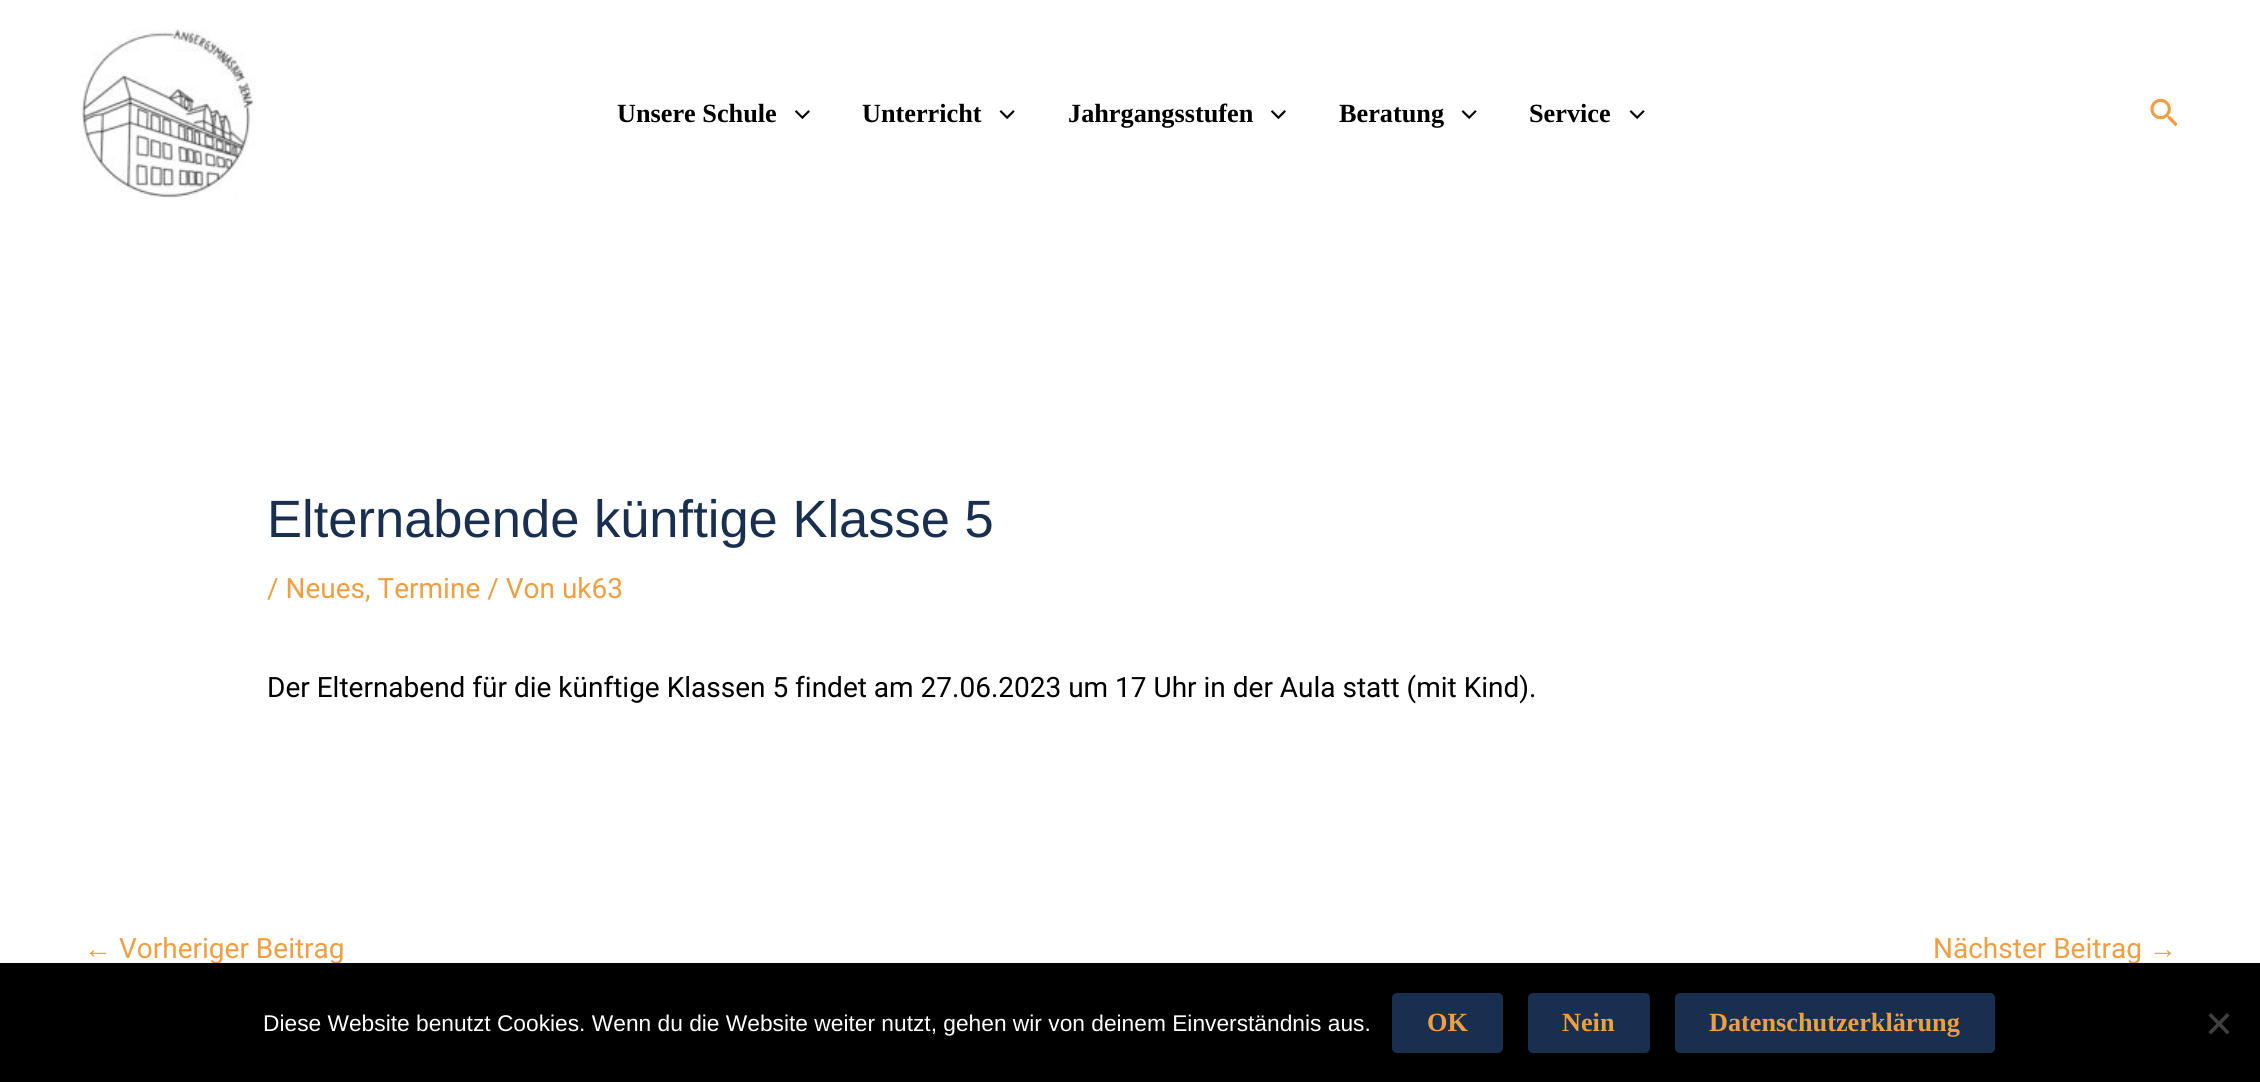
import math
import cairo

surface = cairo.ImageSurface(cairo.FORMAT_RGB24, 2260, 1082)
c = cairo.Context(surface)
options = cairo.FontOptions()
options.set_hint_metrics(cairo.HINT_METRICS_OFF)
options.set_hint_style(cairo.HINT_STYLE_NONE)
c.set_font_options(options)
c.set_miter_limit(4)
def C(code):
 c.set_source_rgb(*(v / 255 for v in bytes.fromhex(code[-6:])))
def F(family, size, italic, bold):
 c.select_font_face(family, cairo.FONT_SLANT_ITALIC if italic else cairo.FONT_SLANT_NORMAL, cairo.FONT_WEIGHT_BOLD if bold else cairo.FONT_WEIGHT_NORMAL)
 c.set_font_size(size)
def T(x, y, s):
 c.move_to(x, y)
 c.show_text(s)
def R(x, y, w, h):
 c.rectangle(x, y, w, h)
 c.fill()
def Q(x, y, w, h, r):
 c.new_sub_path()
 for i, (u, v) in enumerate([(x + w - r, y + h - r), (x + r, y + h - r), (x + r, y + r), (x + w - r, y + r)]):
  c.arc(u, v, r, i * math.pi / 2, (i + 1) * math.pi / 2)
 c.close_path()
def I(path, x, y, w, h):
 c.save()
 c.set_source_surface(cairo.ImageSurface.create_from_png(path), x, y)
 c.rectangle(x, y, w, h)
 c.fill()
 c.restore()
C('ffffff')
c.paint()
I('1.png',80,28,176,171)
F('Liberation Serif',26.25,0,1)
C('000000')
T(617,122,'Unsere Schule')
I('2.png',795,110,15,10)
T(862,122,'Unterricht')
I('3.png',999,110,16,10)
T(1068,122,'Jahrgangsstufen')
I('2.png',1271,110,15,10)
T(1339,122,'Beratung')
I('3.png',1461,110,16,10)
T(1529,122,'Service')
I('3.png',1629,110,16,10)
I('4.png',2150,98,27,29)
F('Liberation Sans',52.5,0,0)
C('192f4f')
T(267,537,'Elternabende künftige Klasse 5')
F('Roboto',28,0,0)
C('ef9f42')
T(267,598,'/ Neues, Termine / Von uk63')
C('000000')
T(267,697,'Der Elternabend für die künftige Klassen 5 findet am 27.06.2023 um 17 Uhr in der Aula statt (mit Kind).')
F('Liberation Sans',28,0,0)
C('ef9f42')
T(84,958,'←')
F('Roboto',28,0,0)
T(119,958,'Vorheriger Beitrag')
T(1933,958,'Nächster Beitrag')
F('Liberation Sans',28,0,0)
T(2149,958,'→')
C('000000')
R(0,963,2260,119)
F('Liberation Sans',22.75,0,0)
C('ffffff')
T(263,1031,'Diese Website benutzt Cookies. Wenn du die Website weiter nutzt, gehen wir von deinem Einverständnis aus.')
C('192f4f')
Q(1390,991,115,64,7)
c.fill_preserve()
C('000000')
c.set_line_width(4)
c.stroke()
F('Liberation Serif',26.25,0,1)
C('ef9f42')
T(1427,1031,'OK')
C('192f4f')
Q(1526,991,126,64,7)
c.fill_preserve()
C('000000')
c.stroke()
C('ef9f42')
T(1562,1031,'Nein')
C('192f4f')
Q(1673,991,324,64,7)
c.fill_preserve()
C('000000')
c.stroke()
C('ef9f42')
T(1709,1031,'Datenschutzerklärung')
C('404040')
c.new_path()
c.move_to(2227,1013)
c.line_to(2229.5,1015.5)
c.line_to(2211,1034.5)
c.line_to(2208.5,1032)
c.close_path()
c.fill()
c.new_path()
c.move_to(2208.5,1015.5)
c.line_to(2211,1013)
c.line_to(2229.5,1032)
c.line_to(2227,1034.5)
c.close_path()
c.fill()
surface.write_to_png('o.png')
